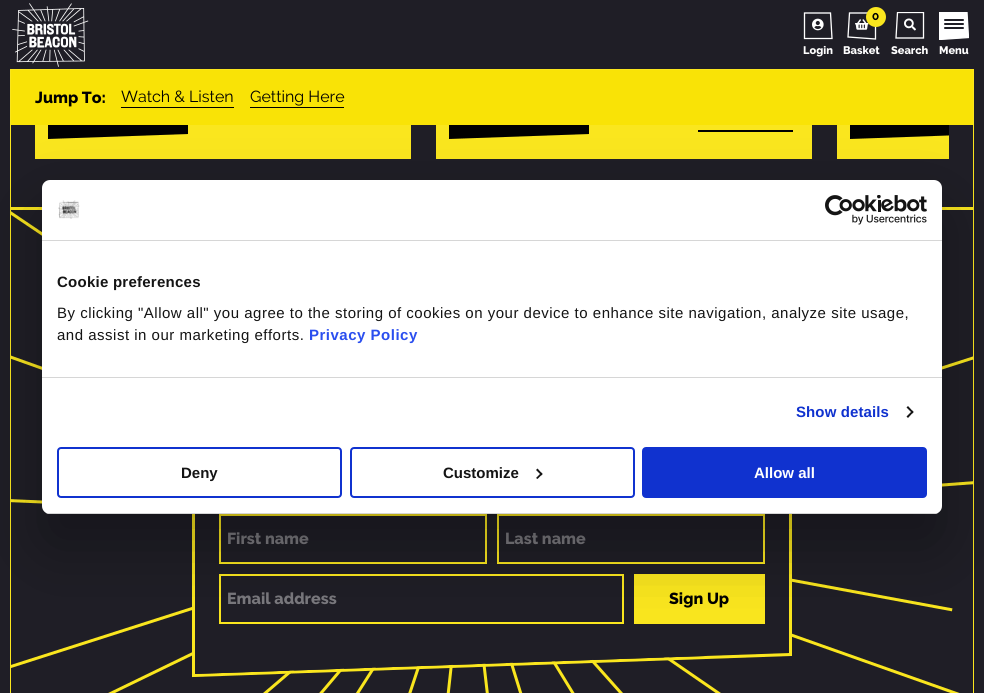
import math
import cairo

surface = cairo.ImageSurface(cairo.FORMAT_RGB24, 984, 693)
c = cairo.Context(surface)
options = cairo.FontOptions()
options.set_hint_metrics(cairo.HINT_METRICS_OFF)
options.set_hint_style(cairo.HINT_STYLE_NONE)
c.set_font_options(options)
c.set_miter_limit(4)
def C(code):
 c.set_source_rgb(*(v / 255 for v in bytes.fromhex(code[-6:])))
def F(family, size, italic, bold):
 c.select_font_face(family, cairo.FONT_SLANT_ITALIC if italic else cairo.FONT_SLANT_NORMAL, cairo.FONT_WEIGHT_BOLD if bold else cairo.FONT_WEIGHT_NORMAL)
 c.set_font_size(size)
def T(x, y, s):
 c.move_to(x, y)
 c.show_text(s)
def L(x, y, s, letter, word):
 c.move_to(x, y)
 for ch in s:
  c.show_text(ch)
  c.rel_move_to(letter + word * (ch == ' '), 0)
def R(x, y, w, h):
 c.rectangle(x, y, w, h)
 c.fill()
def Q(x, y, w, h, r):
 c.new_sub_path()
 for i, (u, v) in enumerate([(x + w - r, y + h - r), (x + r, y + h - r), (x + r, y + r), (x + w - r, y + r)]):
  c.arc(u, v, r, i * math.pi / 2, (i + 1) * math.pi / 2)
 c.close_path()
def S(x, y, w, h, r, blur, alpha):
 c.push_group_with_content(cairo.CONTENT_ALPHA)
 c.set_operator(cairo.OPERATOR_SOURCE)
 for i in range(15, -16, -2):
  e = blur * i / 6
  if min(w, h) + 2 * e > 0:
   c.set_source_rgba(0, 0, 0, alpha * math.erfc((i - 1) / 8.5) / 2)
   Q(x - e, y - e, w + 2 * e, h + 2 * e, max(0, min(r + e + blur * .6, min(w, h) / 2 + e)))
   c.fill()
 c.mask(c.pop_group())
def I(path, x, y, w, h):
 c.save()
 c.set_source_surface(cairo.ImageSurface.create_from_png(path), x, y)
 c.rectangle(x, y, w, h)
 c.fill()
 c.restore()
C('1f1e26')
c.paint()
C('fae61e')
R(10,69,964,1)
I('1.png',12,3,77,64)
I('2.png',812,18,12,13)
c.new_path()
c.move_to(804.5,13)
c.line_to(830.5,13)
c.line_to(832,38.5)
c.line_to(804.5,38.5)
c.close_path()
C('ffffff')
c.set_line_width(1.3)
c.stroke()
F('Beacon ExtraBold',11,0,0)
T(803,54,'Login')
I('3.png',855,19,14,11)
c.new_path()
c.move_to(875.5,13)
c.line_to(849.5,13)
c.line_to(848,37)
c.line_to(875.5,39)
c.close_path()
c.stroke()
C('fae61e')
c.arc(876,17,10,0,2 * math.pi)
c.fill()
F('Beacon ExtraBold',10,0,0)
C('000000')
T(872,20,'0')
F('Beacon ExtraBold',11,0,0)
C('ffffff')
T(843,54,'Basket')
I('4.png',904,18,12,13)
c.save()
c.rectangle(895,12,30,28)
c.clip()
c.new_path()
c.move_to(923.5,12.5)
c.line_to(897.5,12.5)
c.line_to(896,38)
c.line_to(923.5,38)
c.close_path()
c.stroke()
c.restore()
T(891,54,'Search')
c.set_fill_rule(cairo.FILL_RULE_EVEN_ODD)
c.new_path()
c.move_to(967,12.5)
c.line_to(968.5,37.5)
c.line_to(939.5,39.5)
c.line_to(939.5,12.5)
c.close_path()
c.fill()
c.save()
c.set_fill_rule(cairo.FILL_RULE_WINDING)
c.rectangle(939,12,30,28)
c.clip()
c.new_path()
c.move_to(967,12.5)
c.line_to(968.5,37.5)
c.line_to(939.5,39.5)
c.line_to(939.5,12.5)
c.close_path()
c.stroke()
c.restore()
C('1f1e26')
Q(944,23,20,2,1)
c.fill()
Q(944,19,20,2,1)
c.fill()
Q(944,27,20,2,1)
c.fill()
C('ffffff')
T(939,54,'Menu')
C('fae61e')
R(973,70,1,623)
R(10,70,1,623)
R(35,125,376,34)
C('000000')
c.set_fill_rule(cairo.FILL_RULE_WINDING)
c.new_path()
c.move_to(48,90)
c.line_to(188,85)
c.line_to(188,134)
c.line_to(48,139)
c.close_path()
c.fill()
C('fae61e')
R(436,125,376,34)
C('000000')
c.new_path()
c.move_to(449,103)
c.line_to(589,98)
c.line_to(589,134)
c.line_to(449,139)
c.close_path()
c.fill()
R(698,130,95,2)
C('fae61e')
R(837,125,112,34)
c.save()
c.rectangle(10,0,939,183)
c.clip()
C('000000')
c.new_path()
c.move_to(850,90)
c.line_to(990,85)
c.line_to(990,134)
c.line_to(850,139)
c.close_path()
c.fill()
c.restore()
C('f9e306')
R(11,70,962,55)
F('Beacon ExtraBold',16,0,0)
C('000000')
T(35,103,'Jump To:')
F('Beacon',16,0,0)
T(121,102,'Watch & Listen')
R(121,107,113,1)
T(250,102,'Getting Here')
R(250,107,94,1)
C('fae61e')
R(11,207,962,3)
I('5.png',11,211,962,482)
c.rectangle(193.5,391.5,597,263)
c.set_line_width(3)
c.stroke()
c.new_path()
c.move_to(193.5,370.5)
c.line_to(790.5,391)
c.line_to(790.5,524.5)
c.line_to(193.5,503.5)
c.close_path()
c.stroke()
c.new_path()
c.move_to(193.5,542)
c.line_to(790.5,521.5)
c.line_to(790.5,654.5)
c.line_to(193.5,675.5)
c.close_path()
c.stroke()
C('1f1e26')
c.new_path()
c.move_to(195,544)
c.line_to(789,523)
c.line_to(789,653)
c.line_to(195,674)
c.close_path()
c.fill()
R(195,514,594,30)
c.rectangle(220,515,266,48)
C('fae61e')
c.set_line_width(2)
c.stroke()
F('Beacon ExtraBold',16,0,0)
C('79787d')
T(227,544,'First name')
c.rectangle(498,515,266,48)
C('fae61e')
c.stroke()
C('79787d')
T(505,544,'Last name')
c.rectangle(220,575,403,48)
C('fae61e')
c.stroke()
C('79787d')
T(227,604,'Email address')
C('fae61e')
R(634,574,131,50)
C('000000')
T(669,604,'Sign Up')
C('000000')
S(42,212,900,334,8,34,.3)
C('ffffff')
Q(42,180,900,334,8)
c.fill()
C('d6d6d6')
R(42,240,900,1)
I('6.png',58,200,22,19)
I('7.png',825,195,102,30)
R(42,377,900,1)
F('Liberation Sans',15,0,1)
C('141414')
L(57,287,'Cookie preferences',.25,0)
F('Liberation Sans',15,0,0)
L(57,318,'By clicking "Allow all" you agree to the storing of cookies on your device to enhance site navigation, analyze site usage,',.5,0)
L(57,340,'and assist in our marketing efforts.',.5,0)
F('Liberation Sans',15,0,1)
C('2a4eef')
L(309,340,'Privacy Policy',.5,0)
C('1032cf')
L(796,417,'Show details',.1,0)
C('141414')
c.new_path()
c.move_to(908,406)
c.line_to(913.5,412)
c.line_to(912.5,413.5)
c.line_to(906.5,407.5)
c.close_path()
c.fill()
c.new_path()
c.move_to(912.5,410.5)
c.line_to(913.5,412)
c.line_to(908,418)
c.line_to(906.5,416.5)
c.close_path()
c.fill()
c.save()
Q(42,180,900,334,8)
c.clip()
C('d6d6d6')
R(42,513,900,1)
c.restore()
Q(58,448,283,49,3)
C('1032cf')
c.stroke()
C('141414')
T(181,478,'Deny')
Q(351,448,283,49,3)
C('1032cf')
c.stroke()
C('141414')
T(443,478,'Customize')
c.new_path()
c.move_to(537.5,468.5)
c.line_to(542.5,474)
c.line_to(541.5,475.5)
c.line_to(536,470)
c.close_path()
c.fill()
c.new_path()
c.move_to(541.5,472.5)
c.line_to(542.5,474)
c.line_to(537.5,479)
c.line_to(536,478)
c.close_path()
c.fill()
C('1032cf')
Q(643,448,283,49,3)
c.fill_preserve()
c.stroke()
C('ffffff')
T(754,478,'Allow all')
surface.write_to_png('o.png')
